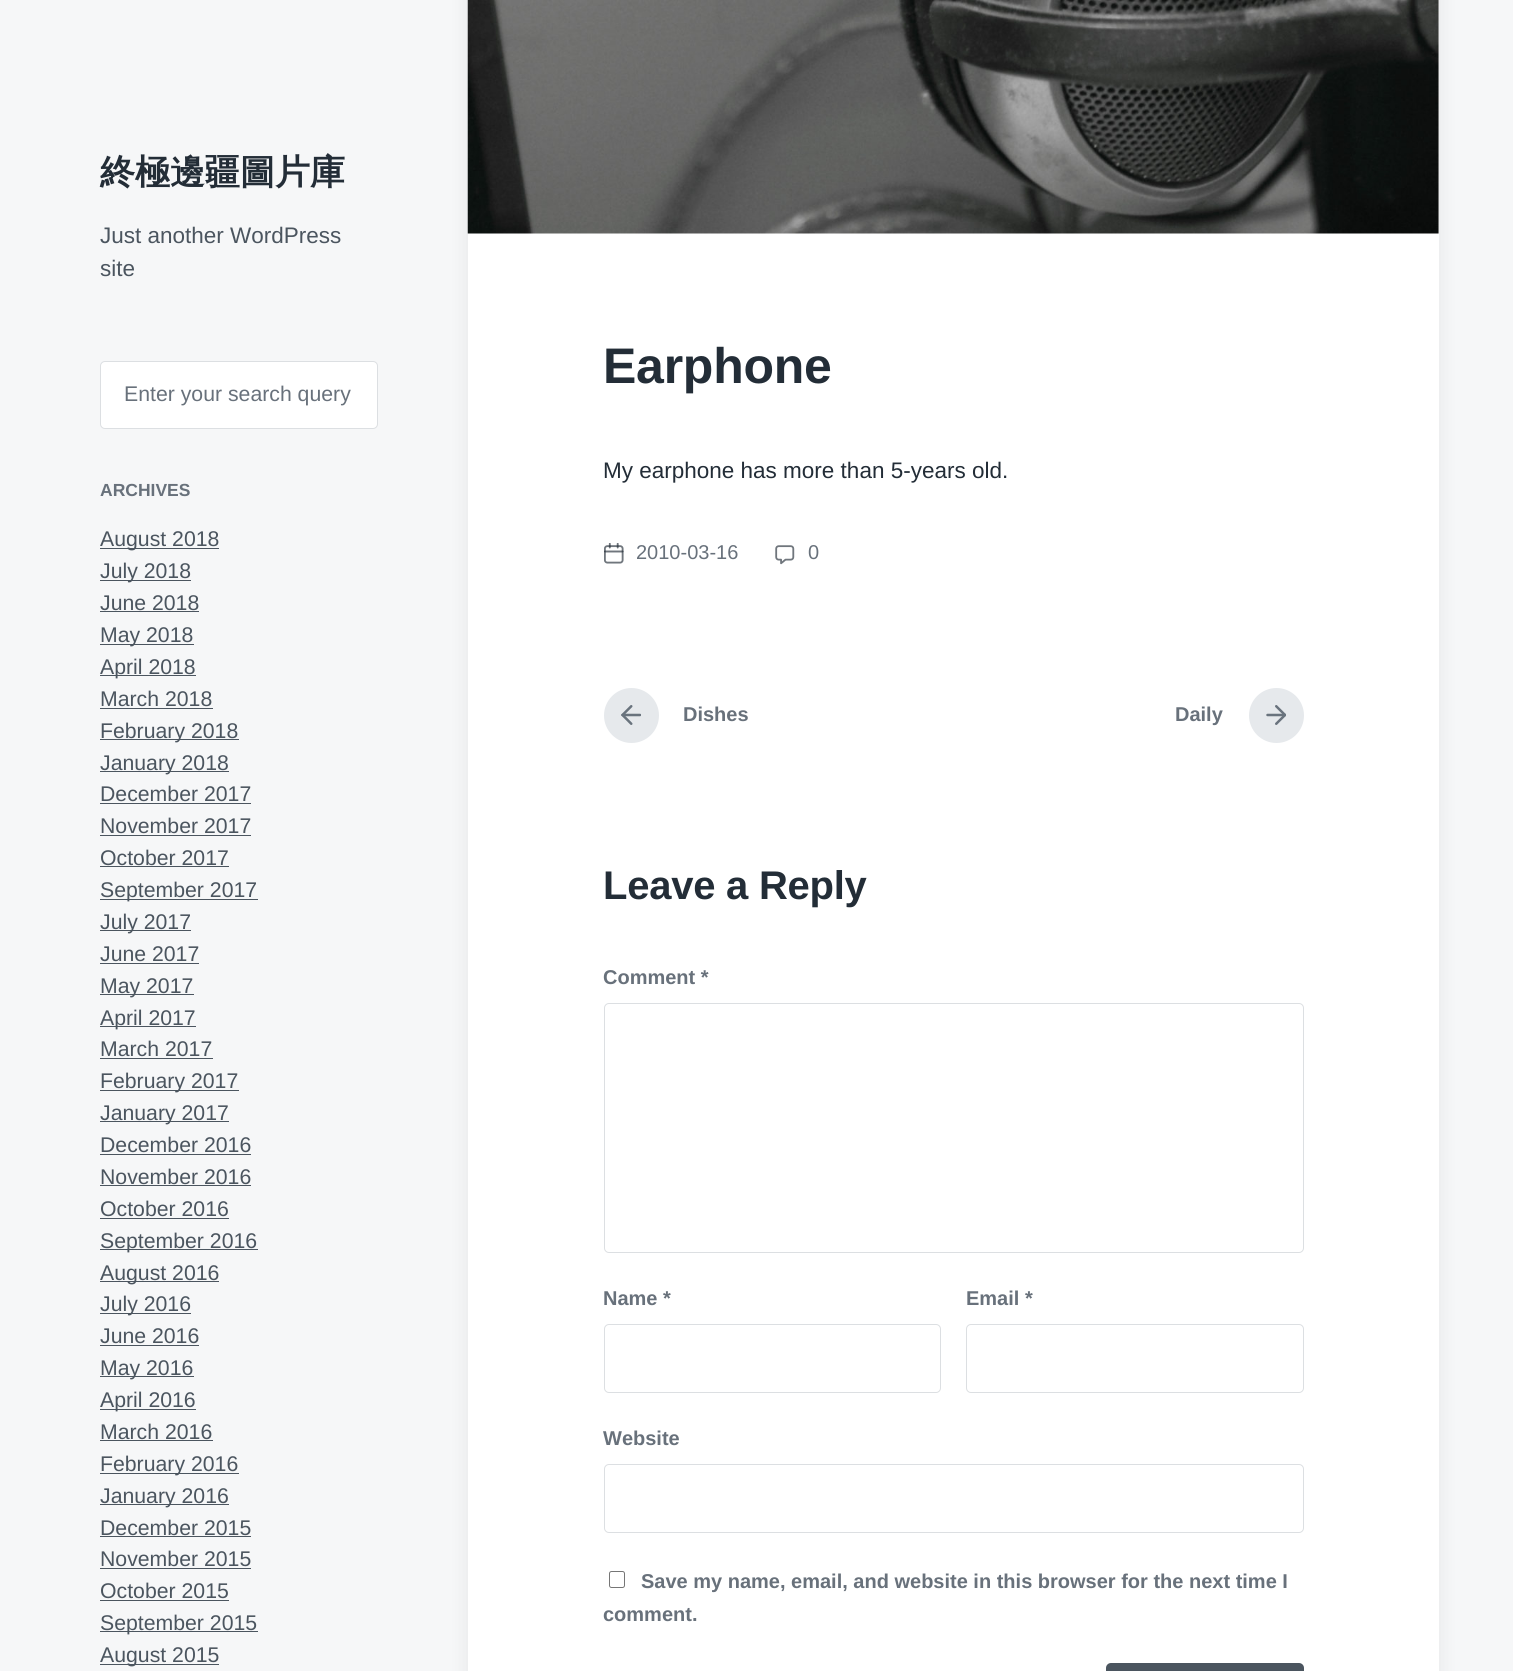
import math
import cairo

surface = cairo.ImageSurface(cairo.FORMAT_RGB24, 1513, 1671)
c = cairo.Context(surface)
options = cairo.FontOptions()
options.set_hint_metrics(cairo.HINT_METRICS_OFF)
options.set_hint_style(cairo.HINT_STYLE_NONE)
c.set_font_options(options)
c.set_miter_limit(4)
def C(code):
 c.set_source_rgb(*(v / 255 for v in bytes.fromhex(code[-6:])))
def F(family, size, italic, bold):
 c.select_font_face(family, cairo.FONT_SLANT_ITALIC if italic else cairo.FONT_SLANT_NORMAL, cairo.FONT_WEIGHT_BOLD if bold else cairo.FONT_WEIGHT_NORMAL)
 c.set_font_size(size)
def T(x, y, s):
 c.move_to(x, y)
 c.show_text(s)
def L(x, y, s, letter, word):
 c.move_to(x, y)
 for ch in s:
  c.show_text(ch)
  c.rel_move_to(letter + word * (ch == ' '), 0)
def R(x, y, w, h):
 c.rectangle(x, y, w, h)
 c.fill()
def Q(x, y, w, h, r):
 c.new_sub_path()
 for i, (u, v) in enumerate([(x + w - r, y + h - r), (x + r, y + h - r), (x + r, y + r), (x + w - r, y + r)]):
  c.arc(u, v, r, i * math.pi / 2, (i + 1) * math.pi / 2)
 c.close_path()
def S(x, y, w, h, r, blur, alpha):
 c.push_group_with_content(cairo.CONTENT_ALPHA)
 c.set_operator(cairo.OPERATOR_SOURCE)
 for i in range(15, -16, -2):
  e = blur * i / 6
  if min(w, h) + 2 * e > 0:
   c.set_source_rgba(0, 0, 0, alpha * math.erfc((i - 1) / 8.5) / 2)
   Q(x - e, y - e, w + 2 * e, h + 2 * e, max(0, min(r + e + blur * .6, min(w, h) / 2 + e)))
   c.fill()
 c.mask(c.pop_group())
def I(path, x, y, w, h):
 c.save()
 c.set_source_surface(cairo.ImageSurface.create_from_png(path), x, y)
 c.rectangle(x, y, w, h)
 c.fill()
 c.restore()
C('f6f7f8')
c.paint()
F('WenQuanYi Zen Hei',35,0,1)
C('232d37')
T(100,184,'終極邊疆圖片庫')
F('Liberation Sans',22.5,0,0)
C('4b555f')
T(100,243,'Just another WordPress')
T(100,276,'site')
C('ffffff')
Q(100.5,361.5,277,67,4.5)
c.fill_preserve()
C('dcdfe2')
c.set_line_width(1)
c.stroke()
F('Liberation Sans',21.25,0,0)
C('68717b')
T(124,401,'Enter your search query')
F('Liberation Sans',17.5,0,1)
T(100,496,'ARCHIVES')
C('4b555f')
R(100,548,119,1)
F('Liberation Sans',21.25,0,0)
T(100,546,'August 2018')
R(100,580,91,1)
T(100,578,'July 2018')
T(100,610,'June 2018')
R(100,611,99,1)
R(100,644,94,1)
T(100,642,'May 2018')
R(100,675,96,1)
T(100,674,'April 2018')
T(100,706,'March 2018')
R(100,708,113,1)
R(100,739,139,1)
T(100,738,'February 2018')
R(100,771,129,1)
T(100,770,'January 2018')
T(100,801,'December 2017')
R(100,803,151,1)
T(100,833,'November 2017')
R(100,835,151,1)
T(100,865,'October 2017')
R(100,866,129,1)
R(100,899,158,1)
T(100,897,'September 2017')
R(100,930,91,1)
T(100,929,'July 2017')
T(100,961,'June 2017')
R(100,963,99,1)
R(100,994,94,1)
T(100,993,'May 2017')
R(100,1026,96,1)
T(100,1025,'April 2017')
T(100,1056,'March 2017')
R(100,1058,113,1)
R(100,1090,139,1)
T(100,1088,'February 2017')
R(100,1121,129,1)
T(100,1120,'January 2017')
T(100,1152,'December 2016')
R(100,1154,151,1)
T(100,1184,'November 2016')
R(100,1185,151,1)
T(100,1216,'October 2016')
R(100,1218,129,1)
R(100,1249,158,1)
T(100,1248,'September 2016')
R(100,1281,119,1)
T(100,1280,'August 2016')
R(100,1313,91,1)
T(100,1311,'July 2016')
T(100,1343,'June 2016')
R(100,1345,99,1)
R(100,1376,94,1)
T(100,1375,'May 2016')
R(100,1409,96,1)
T(100,1407,'April 2016')
T(100,1439,'March 2016')
R(100,1440,113,1)
R(100,1473,139,1)
T(100,1471,'February 2016')
R(100,1504,129,1)
T(100,1503,'January 2016')
T(100,1535,'December 2015')
R(100,1536,151,1)
T(100,1566,'November 2015')
R(100,1568,151,1)
T(100,1598,'October 2015')
R(100,1600,129,1)
R(100,1631,158,1)
T(100,1630,'September 2015')
R(100,1664,119,1)
T(100,1662,'August 2015')
C('050a0f')
S(468,-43,971,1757,10,11,.07)
C('ffffff')
R(468,0,971,1671)
I('1.png',467,0,972,234)
F('Liberation Sans',50,0,1)
C('232d37')
L(603,383,'Earphone',-.25,0)
F('Liberation Sans',22.5,0,0)
T(603,478,'My earphone has more than 5-years old.')
I('2.png',604,543,20,21)
F('Liberation Sans',20,0,0)
C('68717b')
T(636,559,'2010-03-16')
I('3.png',775,545,20,20)
T(808,559,'0')
C('e6e9ec')
c.new_path()
c.arc(631.5,715.5,27.5,0,2 * math.pi)
c.fill()
I('4.png',621,705,20,20)
F('Liberation Sans',20,0,1)
C('68717b')
T(683,721,'Dishes')
T(1175,721,'Daily')
C('e6e9ec')
c.new_path()
c.arc(1276.5,715.5,27.5,0,2 * math.pi)
c.fill()
I('5.png',1266,705,20,20)
F('Liberation Sans',40,0,1)
C('232d37')
L(603,899,'Leave a Reply',-.25,0)
F('Liberation Sans',20,0,1)
C('68717b')
T(603,984,'Comment *')
Q(604.5,1003.5,699,249,4.5)
C('dcdfe2')
c.stroke()
C('68717b')
T(603,1305,'Name *')
Q(604.5,1324.5,336,68,4.5)
C('dcdfe2')
c.stroke()
C('68717b')
T(966,1305,'Email *')
Q(966.5,1324.5,337,68,4.5)
C('dcdfe2')
c.stroke()
C('68717b')
T(603,1445,'Website')
Q(604.5,1464.5,699,68,4.5)
C('dcdfe2')
c.stroke()
Q(609.5,1571.5,15,16,2)
C('767676')
c.stroke()
C('68717b')
T(641,1588,'Save my name, email, and website in this browser for the next time I')
T(603,1621,'comment.')
C('4b555f')
Q(1106,1663,198,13,5)
c.fill()
surface.write_to_png('o.png')
